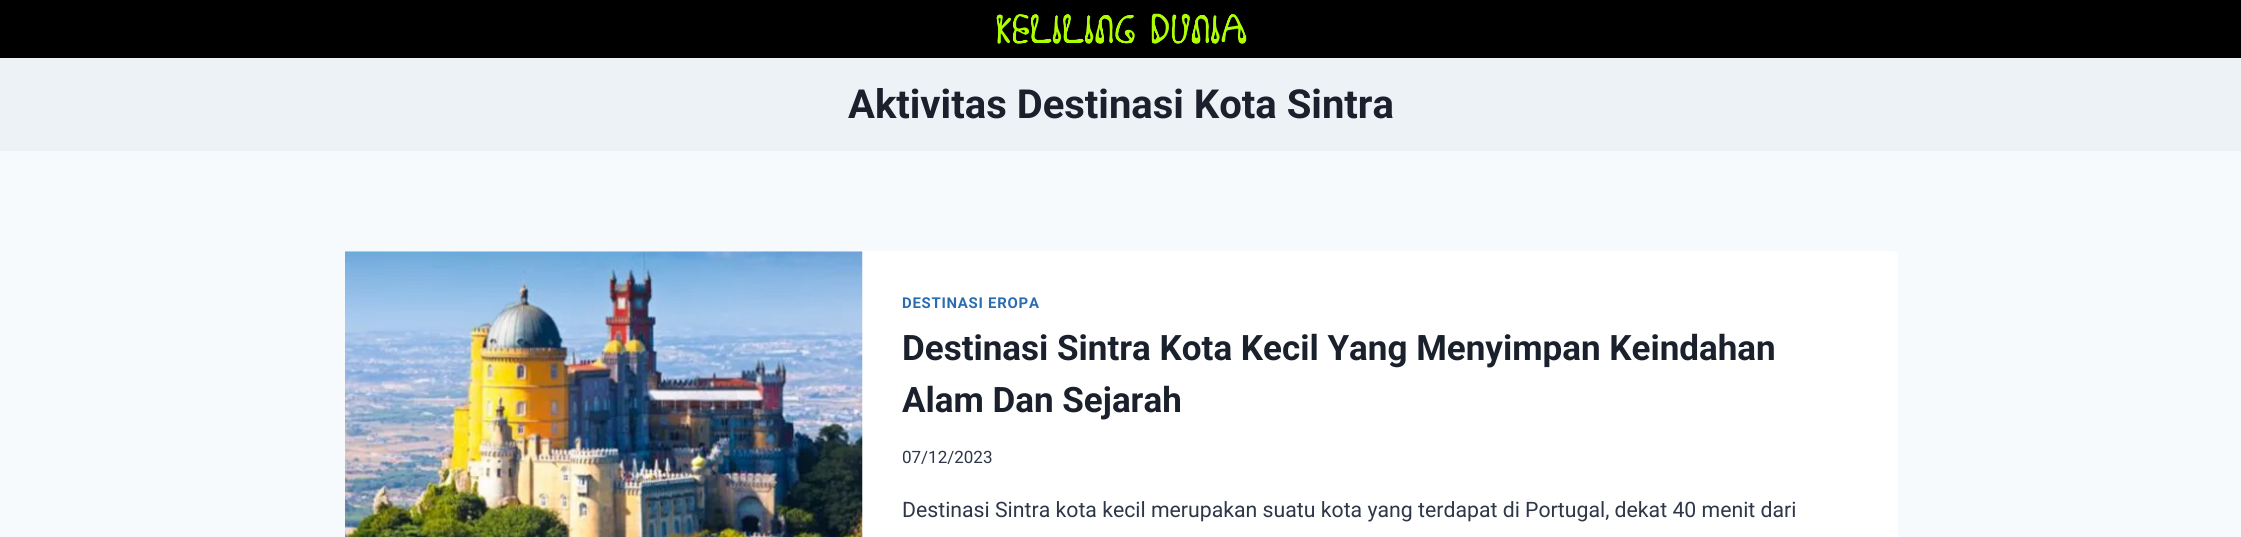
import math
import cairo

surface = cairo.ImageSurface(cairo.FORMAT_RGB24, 2241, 537)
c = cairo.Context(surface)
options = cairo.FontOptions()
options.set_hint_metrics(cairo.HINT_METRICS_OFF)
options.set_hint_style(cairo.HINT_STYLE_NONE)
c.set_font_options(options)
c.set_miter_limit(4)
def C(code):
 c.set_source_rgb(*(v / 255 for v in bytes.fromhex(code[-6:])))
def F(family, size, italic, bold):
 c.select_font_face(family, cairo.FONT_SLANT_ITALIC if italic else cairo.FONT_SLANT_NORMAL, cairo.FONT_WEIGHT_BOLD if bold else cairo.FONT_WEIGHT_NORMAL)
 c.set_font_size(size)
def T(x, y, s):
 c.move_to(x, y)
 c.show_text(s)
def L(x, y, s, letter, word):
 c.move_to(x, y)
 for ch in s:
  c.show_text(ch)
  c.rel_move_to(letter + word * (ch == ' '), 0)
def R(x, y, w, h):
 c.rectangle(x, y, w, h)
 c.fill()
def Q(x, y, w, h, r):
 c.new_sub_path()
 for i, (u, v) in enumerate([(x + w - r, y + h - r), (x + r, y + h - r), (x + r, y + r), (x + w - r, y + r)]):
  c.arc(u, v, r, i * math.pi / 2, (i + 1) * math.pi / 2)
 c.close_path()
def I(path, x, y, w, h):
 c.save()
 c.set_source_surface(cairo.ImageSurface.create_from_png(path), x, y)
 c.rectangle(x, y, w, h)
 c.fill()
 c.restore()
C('f7fafc')
c.paint()
C('000000')
R(0,0,2241,58)
I('1.png',996,13,251,31)
C('edf2f7')
R(0,58,2241,93)
F('Roboto',40,0,1)
C('1a202c')
T(848,118,'Aktivitas Destinasi Kota Sintra')
C('ffffff')
Q(345,251,1553,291,5)
c.fill()
I('2.png',345,251,518,286)
F('Roboto',14.9,0,1)
C('2b6cb0')
L(902,308,'DESTINASI EROPA',.75,0)
F('Roboto',35,0,1)
C('1a202c')
T(902,360,'Destinasi Sintra Kota Kecil Yang Menyimpan Keindahan')
T(902,412,'Alam Dan Sejarah')
F('Roboto',17,0,0)
C('2d3748')
T(902,463,'07/12/2023')
F('Roboto',21.25,0,0)
T(902,517,'Destinasi Sintra kota kecil merupakan suatu kota yang terdapat di Portugal, dekat 40 menit dari')
surface.write_to_png('o.png')
